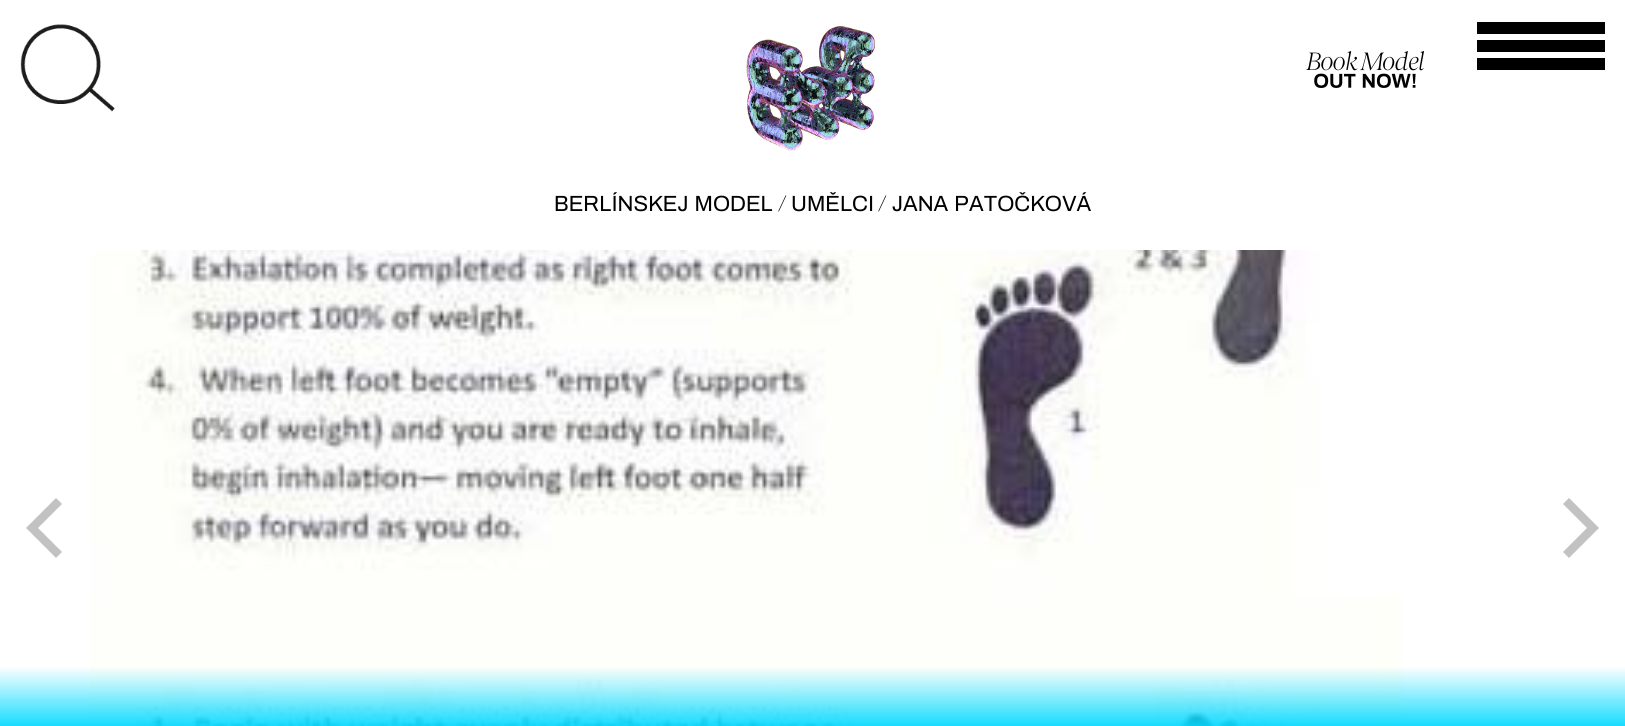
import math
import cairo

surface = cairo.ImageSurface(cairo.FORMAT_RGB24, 1625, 726)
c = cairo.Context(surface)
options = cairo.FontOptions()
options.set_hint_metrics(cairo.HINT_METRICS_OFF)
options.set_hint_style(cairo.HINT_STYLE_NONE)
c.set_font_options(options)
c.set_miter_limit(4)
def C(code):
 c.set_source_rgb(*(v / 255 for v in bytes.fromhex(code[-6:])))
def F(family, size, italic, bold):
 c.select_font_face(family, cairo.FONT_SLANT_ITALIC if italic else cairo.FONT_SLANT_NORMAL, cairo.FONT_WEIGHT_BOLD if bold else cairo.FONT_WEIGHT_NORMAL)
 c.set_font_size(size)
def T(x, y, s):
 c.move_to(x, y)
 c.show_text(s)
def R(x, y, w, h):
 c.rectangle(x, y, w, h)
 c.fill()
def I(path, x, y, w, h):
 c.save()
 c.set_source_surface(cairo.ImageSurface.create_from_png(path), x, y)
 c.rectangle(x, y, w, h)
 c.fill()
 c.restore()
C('ffffff')
c.paint()
I('1.png',20,24,95,88)
I('2.png',746,26,129,125)
I('3.png',1306,51,118,37)
C('000000')
R(1477,22,128,12)
R(1477,40,128,12)
R(1477,58,128,12)
F('Archivo',22,0,0)
T(554,211,'BERLÍNSKEJ MODEL')
F('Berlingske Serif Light',22,0,0)
T(778,211,'/')
F('Archivo',22,0,0)
T(791,211,'UMĚLCI')
F('Berlingske Serif Light',22,0,0)
T(878,211,'/')
F('Archivo',22,0,0)
T(892,211,'JANA PATOČKOVÁ')
I('4.png',90,250,1313,476)
gradient = cairo.LinearGradient(813,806,813,666)
gradient.add_color_stop_rgba(0,1,1,1,1)
gradient.add_color_stop_rgba(.47,0,0.851,1,1)
gradient.add_color_stop_rgba(.53,0,0.851,1,1)
gradient.add_color_stop_rgba(1,0,0.851,1,0)
c.set_source(gradient)
R(0,667,1625,59)
C('c2c2c2')
c.new_path()
c.move_to(26,528)
c.line_to(56,558)
c.line_to(62,552)
c.line_to(38,528)
c.line_to(62,504)
c.line_to(56,498)
c.close_path()
c.fill()
c.new_path()
c.move_to(1599,528)
c.line_to(1569,498)
c.line_to(1563,504)
c.line_to(1587,528)
c.line_to(1563,552)
c.line_to(1569,558)
c.close_path()
c.fill()
surface.write_to_png('o.png')
